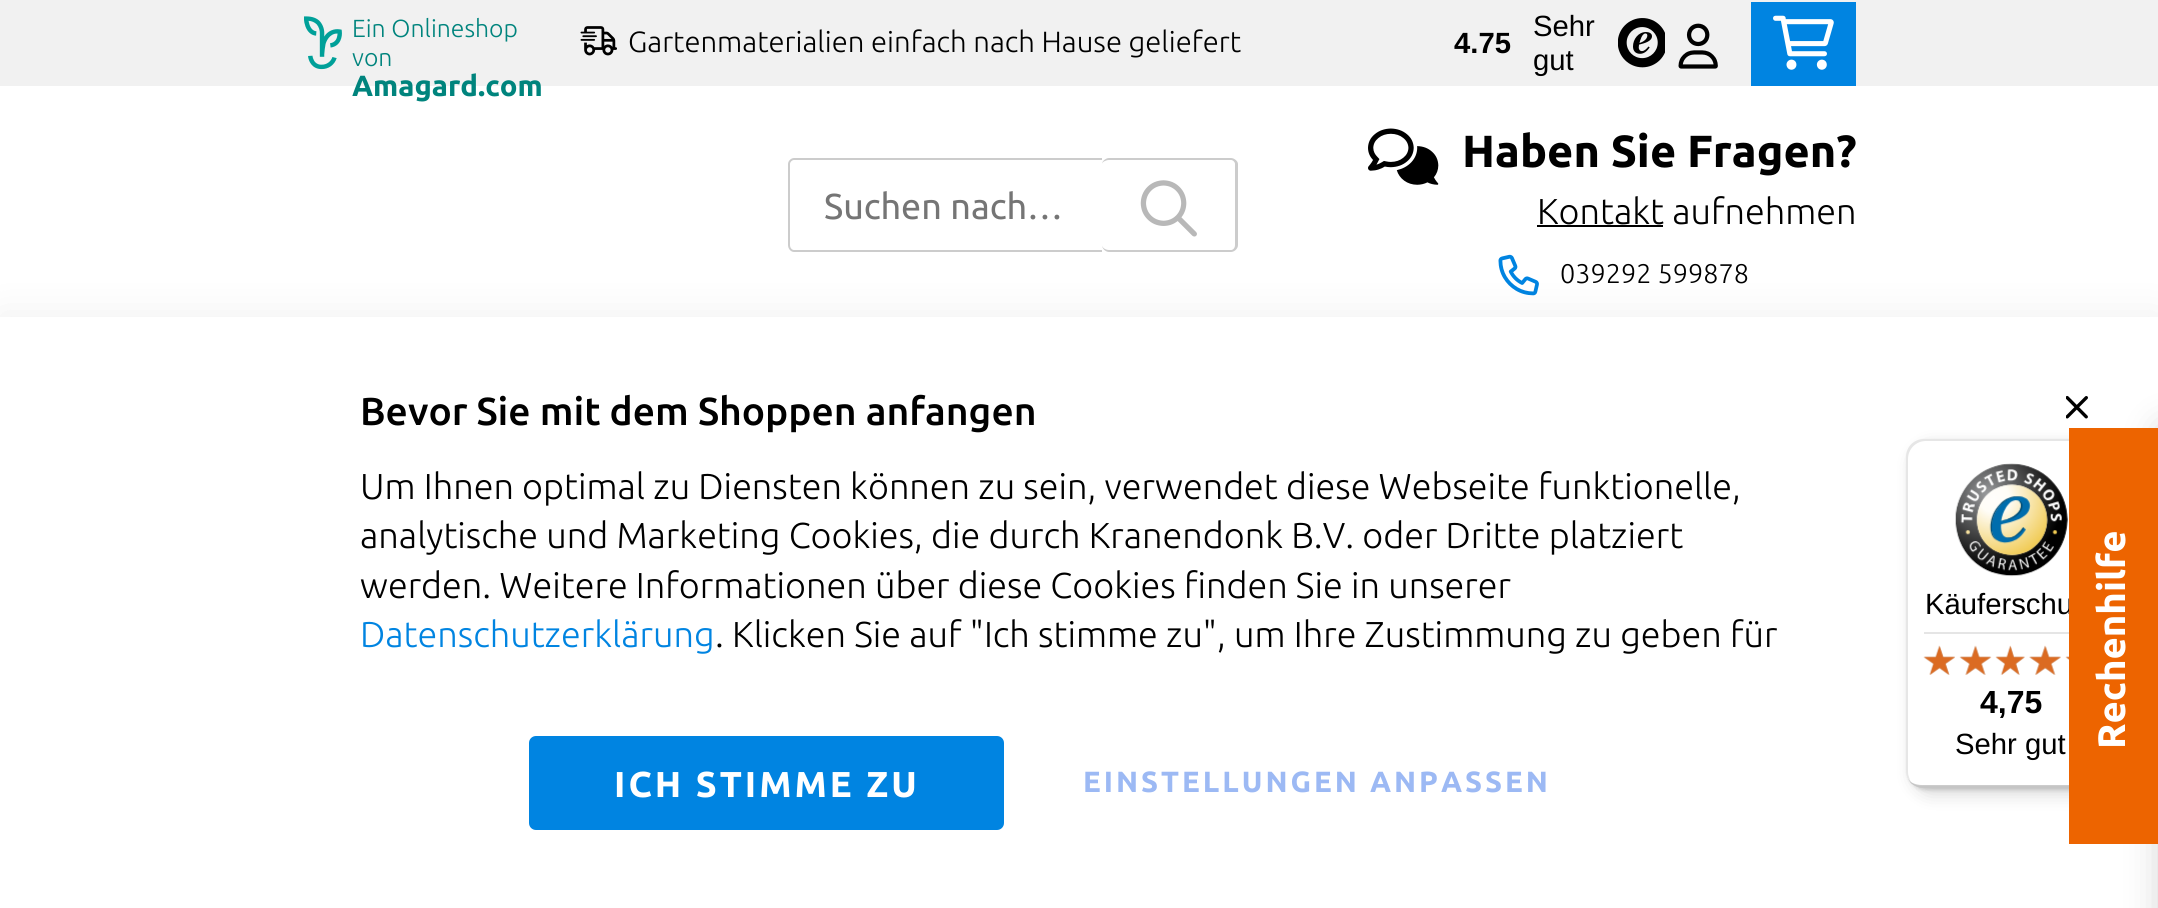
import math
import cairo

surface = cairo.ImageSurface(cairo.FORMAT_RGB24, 2158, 908)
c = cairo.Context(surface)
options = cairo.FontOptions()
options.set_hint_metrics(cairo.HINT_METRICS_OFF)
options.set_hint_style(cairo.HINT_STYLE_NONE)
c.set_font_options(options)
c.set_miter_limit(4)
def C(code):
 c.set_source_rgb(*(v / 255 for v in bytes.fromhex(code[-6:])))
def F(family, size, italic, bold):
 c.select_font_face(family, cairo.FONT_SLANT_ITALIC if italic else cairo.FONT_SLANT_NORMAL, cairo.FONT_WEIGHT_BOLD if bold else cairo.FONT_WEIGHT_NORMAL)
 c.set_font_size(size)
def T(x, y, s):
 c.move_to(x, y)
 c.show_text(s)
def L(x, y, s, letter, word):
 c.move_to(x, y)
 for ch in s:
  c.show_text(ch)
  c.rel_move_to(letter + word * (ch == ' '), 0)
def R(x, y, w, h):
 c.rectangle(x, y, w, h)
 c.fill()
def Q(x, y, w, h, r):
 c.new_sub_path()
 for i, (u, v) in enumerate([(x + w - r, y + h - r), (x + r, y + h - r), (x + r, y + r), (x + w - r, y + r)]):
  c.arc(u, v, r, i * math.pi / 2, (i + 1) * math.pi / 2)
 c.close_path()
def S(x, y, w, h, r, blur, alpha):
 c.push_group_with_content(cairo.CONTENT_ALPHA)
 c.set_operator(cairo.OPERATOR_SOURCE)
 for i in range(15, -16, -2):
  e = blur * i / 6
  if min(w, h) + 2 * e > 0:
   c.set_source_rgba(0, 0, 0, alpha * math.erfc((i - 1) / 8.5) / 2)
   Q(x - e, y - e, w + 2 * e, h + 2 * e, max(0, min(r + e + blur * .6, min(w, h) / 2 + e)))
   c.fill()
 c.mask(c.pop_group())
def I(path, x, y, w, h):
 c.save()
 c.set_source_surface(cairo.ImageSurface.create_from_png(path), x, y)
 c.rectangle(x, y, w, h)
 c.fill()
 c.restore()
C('ffffff')
c.paint()
C('f1f1f1')
R(0,0,2158,86)
I('1.png',304,16,38,54)
F('Ubuntu Light',24.75,0,0)
C('00847d')
T(352,37,'Ein Onlineshop')
T(352,66,'von')
F('Ubuntu',29.25,0,1)
T(352,96,'Amagard.com')
I('2.png',580,26,37,30)
F('Ubuntu Light',29.25,0,0)
C('000000')
T(628,52,'Gartenmaterialien einfach nach Hause geliefert')
F('Liberation Sans',29.25,0,1)
T(1454,53,'4.75')
F('Liberation Sans',29.25,0,0)
T(1533,36,'Sehr')
T(1533,70,'gut')
I('3.png',1618,18,47,50)
I('4.png',1678,23,40,46)
C('0084e1')
R(1751,2,105,84)
I('5.png',1773,15,61,55)
C('cccccc')
c.set_fill_rule(cairo.FILL_RULE_EVEN_ODD)
c.new_path()
c.move_to(794,158)
c.line_to(1102,158)
c.line_to(1102,252)
c.line_to(794,252)
c.curve_to(791,252,788,249,788,245)
c.line_to(788,164)
c.curve_to(788,161,791,158,794,158)
c.close_path()
c.move_to(794,160)
c.line_to(1102,160)
c.line_to(1102,250)
c.line_to(794,250)
c.curve_to(792,250,790,248,790,245)
c.line_to(790,164)
c.curve_to(790,162,792,160,794,160)
c.close_path()
c.fill()
F('Ubuntu',36,0,0)
C('757575')
T(824,219,'Suchen nach…')
C('cccccc')
c.new_path()
c.move_to(1109,158)
c.line_to(1231,158)
c.curve_to(1234,158,1238,161,1238,164)
c.line_to(1238,245)
c.curve_to(1238,249,1234,252,1231,252)
c.line_to(1109,252)
c.curve_to(1106,252,1102,249,1102,245)
c.line_to(1102,164)
c.curve_to(1102,161,1106,158,1109,158)
c.close_path()
c.move_to(1109,160)
c.line_to(1231,160)
c.curve_to(1233,160,1235,162,1235,164)
c.line_to(1235,245)
c.curve_to(1235,248,1233,250,1231,250)
c.line_to(1109,250)
c.curve_to(1106,250,1102,248,1102,245)
c.line_to(1102,164)
c.curve_to(1102,162,1106,160,1109,160)
c.close_path()
c.fill()
I('6.png',1140,180,57,57)
I('7.png',1368,128,71,57)
F('Ubuntu',45,0,1)
C('000000')
T(1462,167,'Haben Sie Fragen?')
F('Ubuntu Light',36,0,0)
T(1537,224,'Kontakt aufnehmen')
R(1537,225,126,2)
I('8.png',1498,254,41,42)
F('Ubuntu Light',27,0,0)
T(1560,283,'039292 599878')
C('000000')
S(0,313,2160,592,0,20,.06)
C('ffffff')
R(0,317,2158,591)
F('Ubuntu Medium',39,0,0)
C('000000')
T(360,425,'Bevor Sie mit dem Shoppen anfangen')
F('Ubuntu Light',36,0,0)
T(360,499,'Um Ihnen optimal zu Diensten können zu sein, verwendet diese Webseite funktionelle,')
T(360,548,'analytische und Marketing Cookies, die durch Kranendonk B.V. oder Dritte platziert')
T(360,598,'werden. Weitere Informationen über diese Cookies finden Sie in unserer')
C('0084e1')
T(360,647,'Datenschutzerklärung')
C('000000')
T(715,647,'. Klicken Sie auf "Ich stimme zu", um Ihre Zustimmung zu geben für')
C('0084e1')
Q(529,736,475,94,7)
c.fill()
F('Ubuntu',36,0,1)
C('ffffff')
L(614,797,'ICH STIMME ZU',3,0)
F('Ubuntu',29.25,0,1)
C('9cb9f4')
L(1083,792,'EINSTELLUNGEN ANPASSEN',3,0)
I('9.png',2066,395,22,24)
C('000000')
S(1913,446,209,348,18,9,.15)
S(1908,441,209,349,18,2,.15)
C('ffffff')
Q(1906,439,209,349,18)
c.fill()
c.set_source_rgba(0,0,0,0.1)
c.set_fill_rule(cairo.FILL_RULE_WINDING)
c.new_path()
c.move_to(1926,441)
c.line_to(2099,441)
c.curve_to(2103,441,2107,443,2111,445)
c.curve_to(2107,441,2102,439,2097,439)
c.line_to(1924,439)
c.curve_to(1914,439,1906,447,1906,457)
c.line_to(1906,770)
c.curve_to(1906,775,1908,780,1912,784)
c.curve_to(1910,780,1908,776,1908,772)
c.line_to(1908,459)
c.curve_to(1908,449,1916,441,1926,441)
c.close_path()
c.fill()
c.set_source_rgba(0,0,0,0.2)
c.new_path()
c.move_to(1908,779)
c.curve_to(1911,784,1917,788,1924,788)
c.line_to(2097,788)
c.curve_to(2107,788,2115,780,2115,770)
c.line_to(2115,457)
c.curve_to(2115,452,2113,448,2110,445)
c.curve_to(2112,448,2113,451,2113,454)
c.line_to(2113,767)
c.curve_to(2113,777,2105,785,2095,785)
c.line_to(1922,785)
c.curve_to(1916,785,1911,783,1908,779)
c.close_path()
c.fill()
c.set_source_rgba(0.196,0.196,0.196,0.2)
c.new_path()
c.move_to(1910,782)
c.curve_to(1914,786,1919,788,1924,788)
c.line_to(2097,788)
c.curve_to(2107,788,2115,780,2115,770)
c.line_to(2115,457)
c.curve_to(2115,454,2114,451,2113,448)
c.curve_to(2114,450,2114,453,2114,455)
c.line_to(2114,768)
c.curve_to(2114,778,2106,786,2096,786)
c.line_to(1922,786)
c.curve_to(1918,786,1914,784,1910,782)
c.close_path()
c.fill()
c.set_source_rgba(1,1,1,0.3)
c.new_path()
c.move_to(1908,777)
c.curve_to(1910,784,1917,788,1924,788)
c.line_to(2097,788)
c.curve_to(2107,788,2115,780,2115,770)
c.line_to(2115,457)
c.curve_to(2115,452,2113,447,2110,444)
c.curve_to(2112,447,2114,451,2114,456)
c.line_to(2114,768)
c.curve_to(2114,778,2106,786,2096,786)
c.line_to(1923,786)
c.curve_to(1916,786,1911,782,1908,777)
c.close_path()
c.fill()
I('10.png',1955,463,113,114)
F('Liberation Sans',29.25,0,0)
C('000000')
T(1925,614,'Käuferschu')
C('e5e5e5')
R(1924,632,145,2)
I('16.png',1924,646,31,29)
I('11.png',1923,645,32,30)
I('17.png',1960,646,31,29)
I('12.png',1959,645,33,30)
I('18.png',1996,646,29,29)
I('13.png',1995,645,30,30)
I('19.png',2029,646,32,29)
I('14.png',2029,645,32,30)
I('20.png',2066,656,3,4)
I('15.png',2065,656,4,4)
F('Liberation Sans',32,0,1)
C('000000')
T(1980,713,'4,75')
F('Liberation Sans',29.25,0,0)
T(1955,754,'Sehr gut')
C('000000')
S(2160,428,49,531,0,17,.18)
C('ed6400')
R(2069,428,89,416)
F('Ubuntu',38.25,0,1)
C('ffffff')
c.save()
c.translate(2125,749)
c.rotate(-90 * math.pi / 180)
T(0,0,'Rechenhilfe')
c.restore()
surface.write_to_png('o.png')
